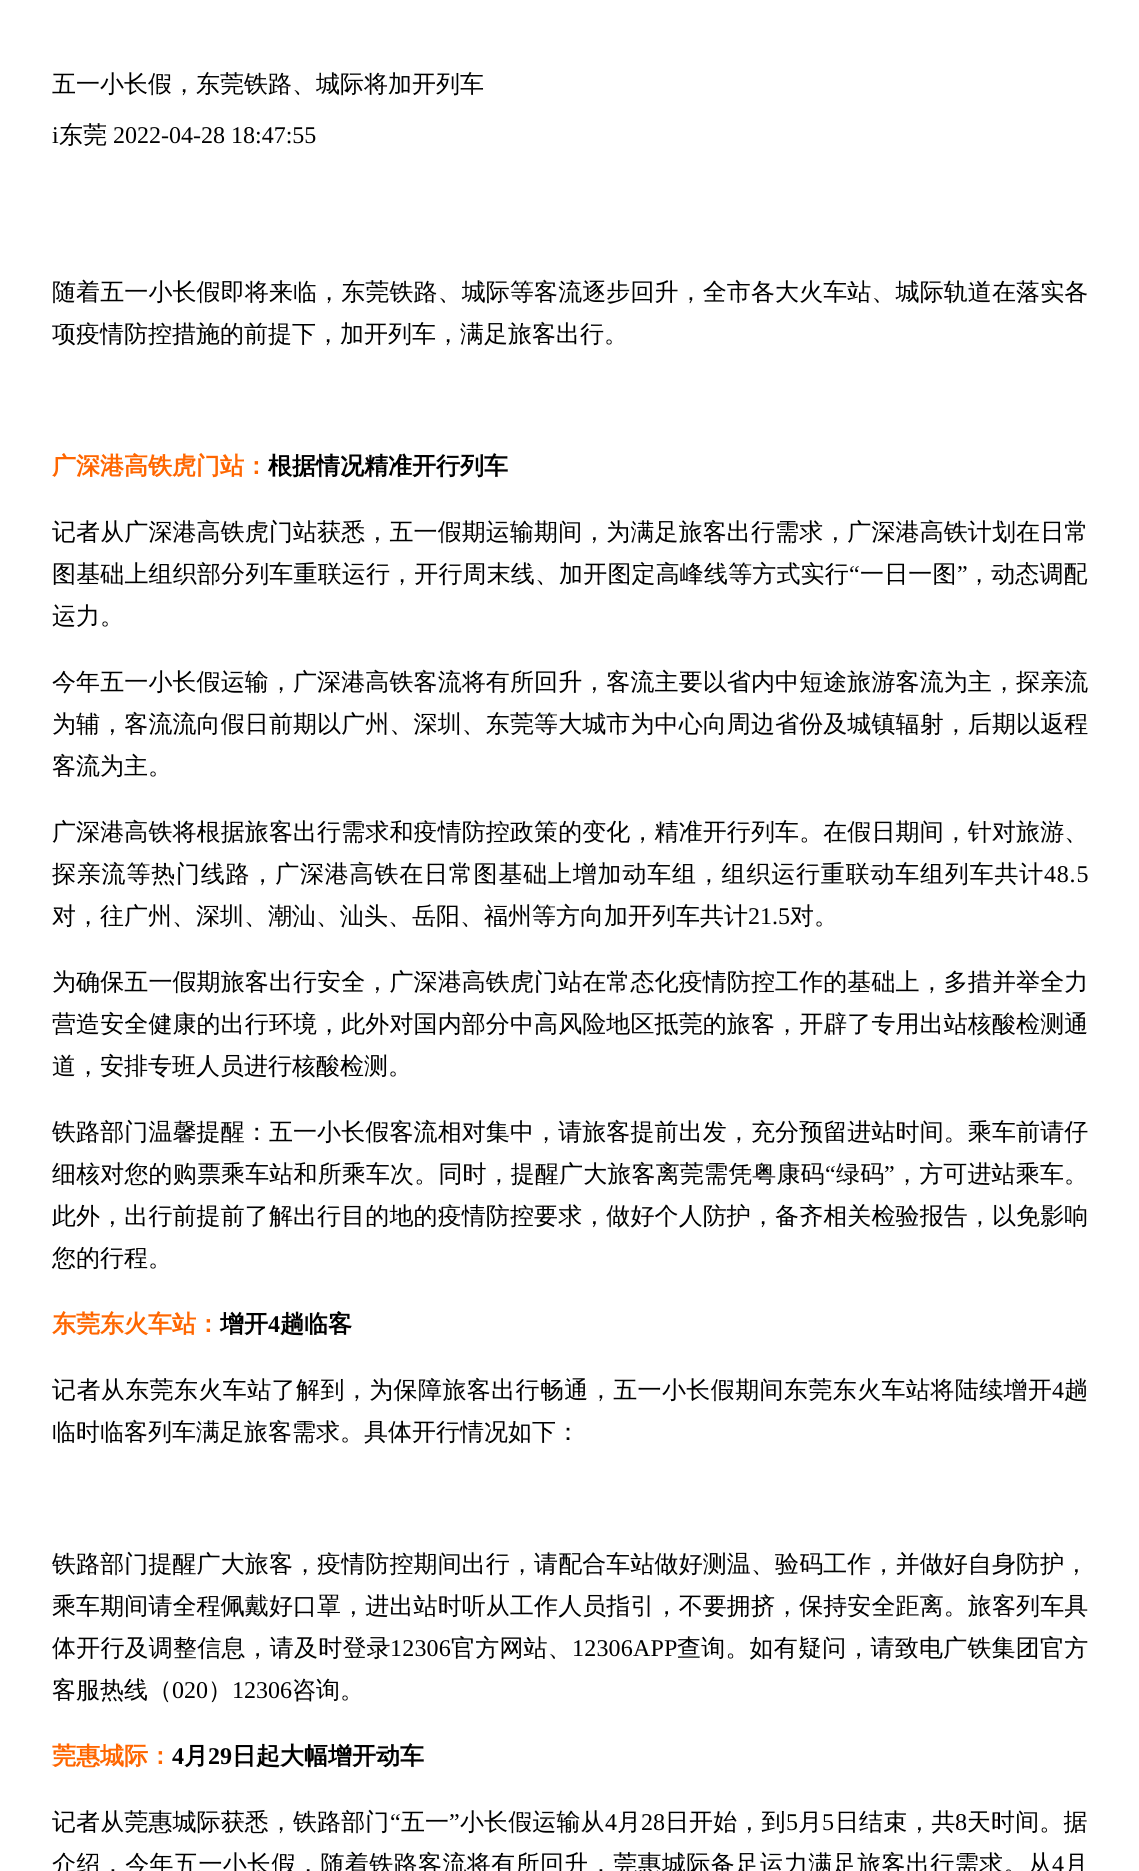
import math
import cairo

surface = cairo.ImageSurface(cairo.FORMAT_RGB24, 1139, 1871)
c = cairo.Context(surface)
options = cairo.FontOptions()
options.set_hint_metrics(cairo.HINT_METRICS_OFF)
options.set_hint_style(cairo.HINT_STYLE_NONE)
c.set_font_options(options)
c.set_miter_limit(4)
def C(code):
 c.set_source_rgb(*(v / 255 for v in bytes.fromhex(code[-6:])))
def F(family, size, italic, bold):
 c.select_font_face(family, cairo.FONT_SLANT_ITALIC if italic else cairo.FONT_SLANT_NORMAL, cairo.FONT_WEIGHT_BOLD if bold else cairo.FONT_WEIGHT_NORMAL)
 c.set_font_size(size)
def T(x, y, s):
 c.move_to(x, y)
 c.show_text(s)
def L(x, y, s, letter, word):
 c.move_to(x, y)
 for ch in s:
  c.show_text(ch)
  c.rel_move_to(letter + word * (ch == ' '), 0)
C('ffffff')
c.paint()
F('WenQuanYi Zen Hei Medium',24,0,0)
C('000000')
T(52,92,'五一小长假，东莞铁路、城际将加开列车')
F('Liberation Serif',24,0,0)
T(52,143,'i')
F('WenQuanYi Zen Hei Medium',24,0,0)
T(59,143,'东莞')
F('Liberation Serif',24,0,0)
T(113,143,'2022-04-28 18:47:55')
F('WenQuanYi Zen Hei Medium',24,0,0)
L(52,300,'随着五一小长假即将来临，东莞铁路、城际等客流逐步回升，全市各大火车站、城际轨道在落实各',.1,0)
T(52,342,'项疫情防控措施的前提下，加开列车，满足旅客出行。')
F('WenQuanYi Zen Hei',24,0,1)
C('ff6600')
T(52,474,'广深港高铁虎门站：')
C('000000')
T(268,474,'根据情况精准开行列车')
F('WenQuanYi Zen Hei Medium',24,0,0)
L(52,540,'记者从广深港高铁虎门站获悉，五一假期运输期间，为满足旅客出行需求，广深港高铁计划在日常',.1,0)
L(52,582,'图基础上组织部分列车重联运行，开行周末线、加开图定高峰线等方式实行',.15,0)
F('Liberation Serif',24,0,0)
L(849,582,'“',.15,0)
F('WenQuanYi Zen Hei Medium',24,0,0)
L(860,582,'一日一图',.15,0)
F('Liberation Serif',24,0,0)
L(957,582,'”',.15,0)
F('WenQuanYi Zen Hei Medium',24,0,0)
L(967,582,'，动态调配',.15,0)
T(52,624,'运力。')
L(52,690,'今年五一小长假运输，广深港高铁客流将有所回升，客流主要以省内中短途旅游客流为主，探亲流',.1,0)
L(52,732,'为辅，客流流向假日前期以广州、深圳、东莞等大城市为中心向周边省份及城镇辐射，后期以返程',.1,0)
T(52,774,'客流为主。')
L(52,840,'广深港高铁将根据旅客出行需求和疫情防控政策的变化，精准开行列车。在假日期间，针对旅游、',.1,0)
L(52,882,'探亲流等热门线路，广深港高铁在日常图基础上增加动车组，组织运行重联动车组列车共计',.8,0)
F('Liberation Serif',24,0,0)
L(1044,882,'48.5',.8,0)
F('WenQuanYi Zen Hei Medium',24,0,0)
T(52,924,'对，往广州、深圳、潮汕、汕头、岳阳、福州等方向加开列车共计')
F('Liberation Serif',24,0,0)
T(748,924,'21.5')
F('WenQuanYi Zen Hei Medium',24,0,0)
T(790,924,'对。')
L(52,990,'为确保五一假期旅客出行安全，广深港高铁虎门站在常态化疫情防控工作的基础上，多措并举全力',.1,0)
L(52,1032,'营造安全健康的出行环境，此外对国内部分中高风险地区抵莞的旅客，开辟了专用出站核酸检测通',.1,0)
T(52,1074,'道，安排专班人员进行核酸检测。')
L(52,1140,'铁路部门温馨提醒：五一小长假客流相对集中，请旅客提前出发，充分预留进站时间。乘车前请仔',.1,0)
L(52,1182,'细核对您的购票乘车站和所乘车次。同时，提醒广大旅客离莞需凭粤康码',.15,0)
F('Liberation Serif',24,0,0)
L(825,1182,'“',.15,0)
F('WenQuanYi Zen Hei Medium',24,0,0)
L(836,1182,'绿码',.15,0)
F('Liberation Serif',24,0,0)
L(884,1182,'”',.15,0)
F('WenQuanYi Zen Hei Medium',24,0,0)
L(895,1182,'，方可进站乘车。',.15,0)
L(52,1224,'此外，出行前提前了解出行目的地的疫情防控要求，做好个人防护，备齐相关检验报告，以免影响',.1,0)
T(52,1266,'您的行程。')
F('WenQuanYi Zen Hei',24,0,1)
C('ff6600')
T(52,1332,'东莞东火车站：')
C('000000')
T(220,1332,'增开')
F('Liberation Serif',24,0,1)
T(268,1332,'4')
F('WenQuanYi Zen Hei',24,0,1)
T(280,1332,'趟临客')
F('WenQuanYi Zen Hei Medium',24,0,0)
L(52,1398,'记者从东莞东火车站了解到，为保障旅客出行畅通，五一小长假期间东莞东火车站将陆续增开',.4,0)
F('Liberation Serif',24,0,0)
L(1052,1398,'4',.4,0)
F('WenQuanYi Zen Hei Medium',24,0,0)
L(1064,1398,'趟',.4,0)
T(52,1440,'临时临客列车满足旅客需求。具体开行情况如下：')
L(52,1572,'铁路部门提醒广大旅客，疫情防控期间出行，请配合车站做好测温、验码工作，并做好自身防护，',.1,0)
L(52,1614,'乘车期间请全程佩戴好口罩，进出站时听从工作人员指引，不要拥挤，保持安全距离。旅客列车具',.1,0)
L(52,1656,'体开行及调整信息，请及时登录',.2,0)
F('Liberation Serif',24,0,0)
L(390,1656,'12306',.2,0)
F('WenQuanYi Zen Hei Medium',24,0,0)
L(451,1656,'官方网站、',.2,0)
F('Liberation Serif',24,0,0)
L(572,1656,'12306APP',.2,0)
F('WenQuanYi Zen Hei Medium',24,0,0)
L(677,1656,'查询。如有疑问，请致电广铁集团官方',.2,0)
T(52,1698,'客服热线（')
F('Liberation Serif',24,0,0)
T(172,1698,'020')
F('WenQuanYi Zen Hei Medium',24,0,0)
T(208,1698,'）')
F('Liberation Serif',24,0,0)
T(232,1698,'12306')
F('WenQuanYi Zen Hei Medium',24,0,0)
T(292,1698,'咨询。')
F('WenQuanYi Zen Hei',24,0,1)
C('ff6600')
T(52,1764,'莞惠城际：')
F('Liberation Serif',24,0,1)
C('000000')
T(172,1764,'4')
F('WenQuanYi Zen Hei',24,0,1)
T(184,1764,'月')
F('Liberation Serif',24,0,1)
T(208,1764,'29')
F('WenQuanYi Zen Hei',24,0,1)
T(232,1764,'日起大幅增开动车')
F('WenQuanYi Zen Hei Medium',24,0,0)
L(52,1830,'记者从莞惠城际获悉，铁路部门',.1,0)
F('Liberation Serif',24,0,0)
L(390,1830,'“',.1,0)
F('WenQuanYi Zen Hei Medium',24,0,0)
L(401,1830,'五一',.1,0)
F('Liberation Serif',24,0,0)
L(449,1830,'”',.1,0)
F('WenQuanYi Zen Hei Medium',24,0,0)
L(460,1830,'小长假运输从',.1,0)
F('Liberation Serif',24,0,0)
L(605,1830,'4',.1,0)
F('WenQuanYi Zen Hei Medium',24,0,0)
L(617,1830,'月',.1,0)
F('Liberation Serif',24,0,0)
L(641,1830,'28',.1,0)
F('WenQuanYi Zen Hei Medium',24,0,0)
L(665,1830,'日开始，到',.1,0)
F('Liberation Serif',24,0,0)
L(786,1830,'5',.1,0)
F('WenQuanYi Zen Hei Medium',24,0,0)
L(798,1830,'月',.1,0)
F('Liberation Serif',24,0,0)
L(822,1830,'5',.1,0)
F('WenQuanYi Zen Hei Medium',24,0,0)
L(835,1830,'日结束，共',.1,0)
F('Liberation Serif',24,0,0)
L(955,1830,'8',.1,0)
F('WenQuanYi Zen Hei Medium',24,0,0)
L(967,1830,'天时间。据',.1,0)
L(52,1872,'介绍，今年五一小长假，随着铁路客流将有所回升，莞惠城际备足运力满足旅客出行需求。从',.4,0)
F('Liberation Serif',24,0,0)
L(1052,1872,'4',.4,0)
F('WenQuanYi Zen Hei Medium',24,0,0)
L(1064,1872,'月',.4,0)
surface.write_to_png('o.png')
